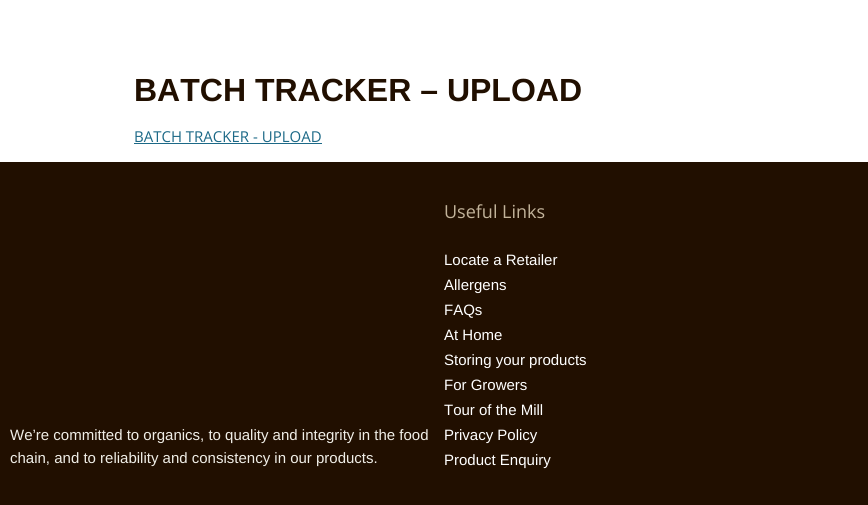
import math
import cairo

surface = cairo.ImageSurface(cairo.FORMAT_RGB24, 868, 505)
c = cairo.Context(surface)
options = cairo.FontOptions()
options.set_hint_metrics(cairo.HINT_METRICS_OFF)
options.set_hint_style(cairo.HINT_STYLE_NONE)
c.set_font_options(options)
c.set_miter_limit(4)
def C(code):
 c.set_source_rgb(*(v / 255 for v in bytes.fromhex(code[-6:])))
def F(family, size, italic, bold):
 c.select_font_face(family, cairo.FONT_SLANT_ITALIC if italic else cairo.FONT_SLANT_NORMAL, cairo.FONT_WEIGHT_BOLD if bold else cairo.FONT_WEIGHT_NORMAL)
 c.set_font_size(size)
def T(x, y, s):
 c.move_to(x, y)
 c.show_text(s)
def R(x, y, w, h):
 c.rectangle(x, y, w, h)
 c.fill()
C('ffffff')
c.paint()
F('Liberation Sans',32,0,1)
C('210f00')
T(134,101,'BATCH TRACKER – UPLOAD')
F('Open Sans',15,0,0)
C('1c6987')
T(134,142,'BATCH TRACKER - UPLOAD')
R(134,143,188,1)
C('210f00')
R(0,162,868,343)
F('Liberation Sans',15,0,0)
C('f0eee7')
T(10,440,'We’re committed to organics, to quality and integrity in the food')
T(10,463,'chain, and to reliability and consistency in our products.')
F('Open Sans',18,0,0)
C('c2b39a')
T(444,218,'Useful Links')
F('Liberation Sans',15,0,0)
C('ffffff')
T(444,265,'Locate a Retailer')
T(444,290,'Allergens')
T(444,315,'FAQs')
T(444,340,'At Home')
T(444,365,'Storing your products')
T(444,390,'For Growers')
T(444,415,'Tour of the Mill')
T(444,440,'Privacy Policy')
T(444,465,'Product Enquiry')
surface.write_to_png('o.png')
